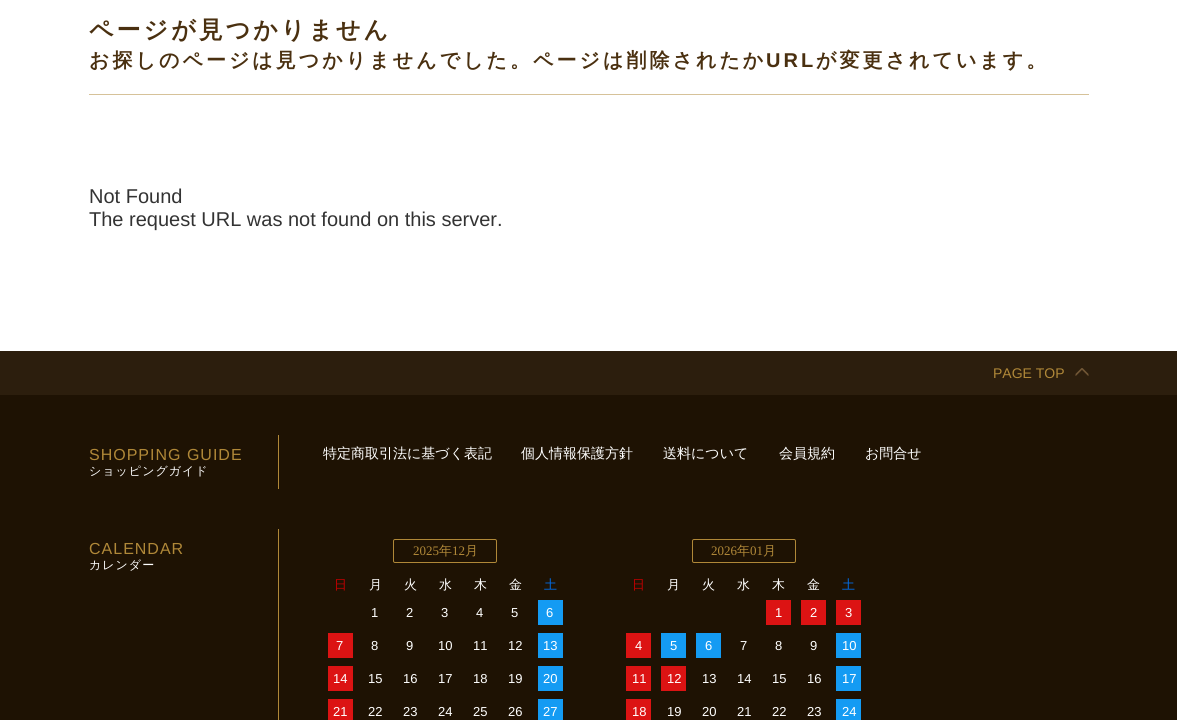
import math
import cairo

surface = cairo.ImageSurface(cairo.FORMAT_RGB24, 1177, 720)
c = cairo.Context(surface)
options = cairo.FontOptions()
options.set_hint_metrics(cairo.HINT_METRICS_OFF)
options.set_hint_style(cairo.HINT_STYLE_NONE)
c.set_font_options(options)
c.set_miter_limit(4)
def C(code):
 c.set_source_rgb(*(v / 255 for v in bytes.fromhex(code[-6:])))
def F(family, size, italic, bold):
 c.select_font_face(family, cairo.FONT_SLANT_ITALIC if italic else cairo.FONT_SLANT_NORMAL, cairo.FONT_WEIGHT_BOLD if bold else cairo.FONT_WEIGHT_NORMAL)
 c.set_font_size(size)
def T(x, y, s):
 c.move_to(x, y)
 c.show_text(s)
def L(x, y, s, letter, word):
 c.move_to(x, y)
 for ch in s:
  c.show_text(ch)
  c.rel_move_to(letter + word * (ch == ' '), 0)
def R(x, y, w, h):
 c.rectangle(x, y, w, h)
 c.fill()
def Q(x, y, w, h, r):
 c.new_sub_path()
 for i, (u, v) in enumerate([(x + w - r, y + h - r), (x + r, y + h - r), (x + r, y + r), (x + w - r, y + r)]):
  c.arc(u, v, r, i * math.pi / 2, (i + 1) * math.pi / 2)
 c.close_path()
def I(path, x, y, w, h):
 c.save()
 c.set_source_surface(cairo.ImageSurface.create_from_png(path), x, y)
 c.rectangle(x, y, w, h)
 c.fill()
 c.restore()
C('ffffff')
c.paint()
C('d6c299')
R(89,94,1000,1)
F('WenQuanYi Zen Hei',24,0,1)
C('4a3010')
L(89,38,'ページが見つかりません',3,0)
F('WenQuanYi Zen Hei',20,0,1)
L(89,67,'お探しのページは見つかりませんでした。ページは削除されたか',3,0)
F('Liberation Sans',20,0,1)
L(766,67,'URL',3,0)
F('WenQuanYi Zen Hei',20,0,1)
L(816,67,'が変更されています。',3,0)
F('Liberation Sans',20,0,0)
C('333333')
T(89,203,'Not Found')
T(89,226,'The request URL was not found on this server.')
C('2c1e0d')
R(0,351,1177,44)
F('Liberation Sans',14,0,0)
C('b08838')
T(993,378,'PAGE TOP')
I('1.png',1075,368,14,8)
C('1e1203')
R(0,395,1177,325)
C('b08838')
R(278,435,1,54)
F('Liberation Sans',16,0,0)
L(89,460,'SHOPPING GUIDE',1,0)
F('WenQuanYi Zen Hei Medium',12,0,0)
C('ffffff')
L(89,475,'ショッピングガイド',1,0)
F('WenQuanYi Zen Hei Medium',14,0,0)
T(323,458,'特定商取引法に基づく表記')
T(521,458,'個人情報保護方針')
T(663,458,'送料について')
T(779,458,'会員規約')
T(865,458,'お問合せ')
C('b08838')
R(278,529,1,191)
F('Liberation Sans',16,0,0)
L(89,554,'CALENDAR',1,0)
F('WenQuanYi Zen Hei Medium',12,0,0)
C('ffffff')
L(89,569,'カレンダー',1,0)
Q(393.5,539.5,103,23,1.5)
C('b08838')
c.set_line_width(1)
c.stroke()
F('Liberation Serif',13,0,0)
T(413,555,'2025')
F('WenQuanYi Zen Hei Medium',13,0,0)
T(439,555,'年')
F('Liberation Serif',13,0,0)
T(452,555,'12')
F('WenQuanYi Zen Hei Medium',13,0,0)
T(465,555,'月')
C('c00000')
T(334,589,'日')
C('ffffff')
T(369,589,'月')
T(404,589,'火')
T(439,589,'水')
T(474,589,'木')
T(509,589,'金')
C('006de8')
T(544,589,'土')
F('Liberation Sans',13,0,0)
C('ffffff')
T(371,617,'1')
T(406,617,'2')
T(441,617,'3')
T(476,617,'4')
T(511,617,'5')
C('149bf3')
R(538,600,25,25)
C('ffffff')
T(546,617,'6')
C('dc1313')
R(328,633,25,25)
C('ffffff')
T(336,650,'7')
T(371,650,'8')
T(406,650,'9')
T(438,650,'10')
T(473,650,'11')
T(508,650,'12')
C('149bf3')
R(538,633,25,25)
C('ffffff')
T(543,650,'13')
C('dc1313')
R(328,666,25,25)
C('ffffff')
T(333,683,'14')
T(368,683,'15')
T(403,683,'16')
T(438,683,'17')
T(473,683,'18')
T(508,683,'19')
C('149bf3')
R(538,666,25,25)
C('ffffff')
T(543,683,'20')
C('dc1313')
R(328,699,25,21)
C('ffffff')
T(333,716,'21')
T(368,716,'22')
T(403,716,'23')
T(438,716,'24')
T(473,716,'25')
T(508,716,'26')
C('149bf3')
R(538,699,25,21)
C('ffffff')
T(543,716,'27')
Q(692.5,539.5,103,23,1.5)
C('b08838')
c.stroke()
F('Liberation Serif',13,0,0)
T(711,555,'2026')
F('WenQuanYi Zen Hei Medium',13,0,0)
T(737,555,'年')
F('Liberation Serif',13,0,0)
T(750,555,'01')
F('WenQuanYi Zen Hei Medium',13,0,0)
T(763,555,'月')
C('c00000')
T(632,589,'日')
C('ffffff')
T(667,589,'月')
T(702,589,'火')
T(737,589,'水')
T(772,589,'木')
T(807,589,'金')
C('006de8')
T(842,589,'土')
C('dc1313')
R(766,600,25,25)
F('Liberation Sans',13,0,0)
C('ffffff')
T(775,617,'1')
C('dc1313')
R(801,600,25,25)
C('ffffff')
T(810,617,'2')
C('dc1313')
R(836,600,25,25)
C('ffffff')
T(845,617,'3')
C('dc1313')
R(626,633,25,25)
C('ffffff')
T(635,650,'4')
C('149bf3')
R(661,633,25,25)
C('ffffff')
T(670,650,'5')
C('149bf3')
R(696,633,25,25)
C('ffffff')
T(705,650,'6')
T(740,650,'7')
T(775,650,'8')
T(810,650,'9')
C('149bf3')
R(836,633,25,25)
C('ffffff')
T(842,650,'10')
C('dc1313')
R(626,666,25,25)
C('ffffff')
T(632,683,'11')
C('dc1313')
R(661,666,25,25)
C('ffffff')
T(667,683,'12')
T(702,683,'13')
T(737,683,'14')
T(772,683,'15')
T(807,683,'16')
C('149bf3')
R(836,666,25,25)
C('ffffff')
T(842,683,'17')
C('dc1313')
R(626,699,25,21)
C('ffffff')
T(632,716,'18')
T(667,716,'19')
T(702,716,'20')
T(737,716,'21')
T(772,716,'22')
T(807,716,'23')
C('149bf3')
R(836,699,25,21)
C('ffffff')
T(842,716,'24')
surface.write_to_png('o.png')
